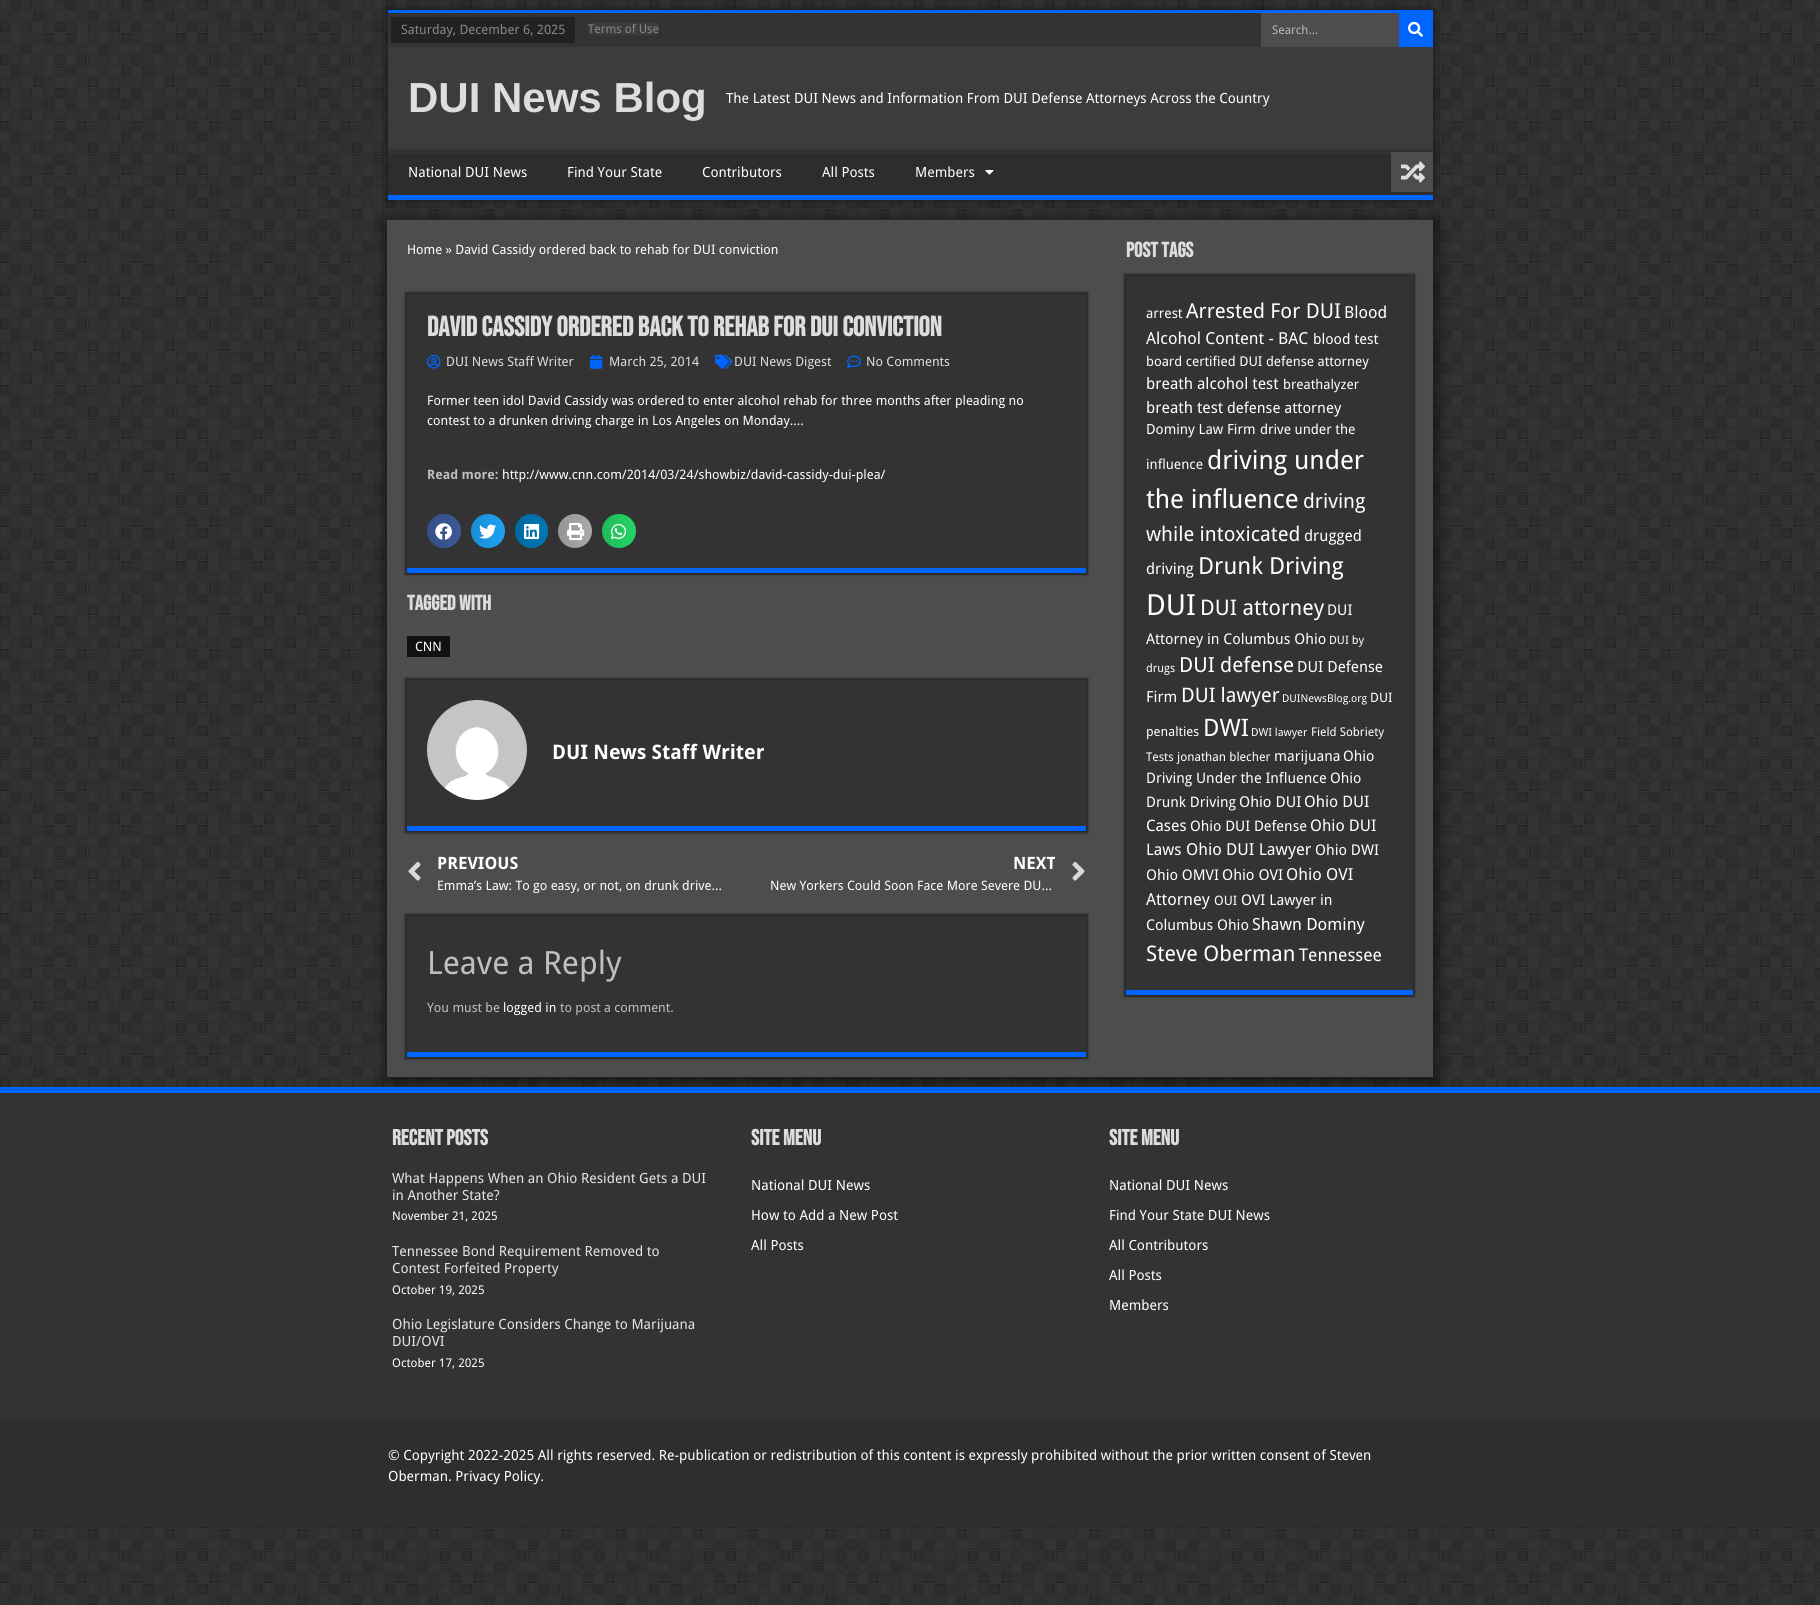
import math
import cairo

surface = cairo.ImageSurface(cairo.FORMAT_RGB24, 1820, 1605)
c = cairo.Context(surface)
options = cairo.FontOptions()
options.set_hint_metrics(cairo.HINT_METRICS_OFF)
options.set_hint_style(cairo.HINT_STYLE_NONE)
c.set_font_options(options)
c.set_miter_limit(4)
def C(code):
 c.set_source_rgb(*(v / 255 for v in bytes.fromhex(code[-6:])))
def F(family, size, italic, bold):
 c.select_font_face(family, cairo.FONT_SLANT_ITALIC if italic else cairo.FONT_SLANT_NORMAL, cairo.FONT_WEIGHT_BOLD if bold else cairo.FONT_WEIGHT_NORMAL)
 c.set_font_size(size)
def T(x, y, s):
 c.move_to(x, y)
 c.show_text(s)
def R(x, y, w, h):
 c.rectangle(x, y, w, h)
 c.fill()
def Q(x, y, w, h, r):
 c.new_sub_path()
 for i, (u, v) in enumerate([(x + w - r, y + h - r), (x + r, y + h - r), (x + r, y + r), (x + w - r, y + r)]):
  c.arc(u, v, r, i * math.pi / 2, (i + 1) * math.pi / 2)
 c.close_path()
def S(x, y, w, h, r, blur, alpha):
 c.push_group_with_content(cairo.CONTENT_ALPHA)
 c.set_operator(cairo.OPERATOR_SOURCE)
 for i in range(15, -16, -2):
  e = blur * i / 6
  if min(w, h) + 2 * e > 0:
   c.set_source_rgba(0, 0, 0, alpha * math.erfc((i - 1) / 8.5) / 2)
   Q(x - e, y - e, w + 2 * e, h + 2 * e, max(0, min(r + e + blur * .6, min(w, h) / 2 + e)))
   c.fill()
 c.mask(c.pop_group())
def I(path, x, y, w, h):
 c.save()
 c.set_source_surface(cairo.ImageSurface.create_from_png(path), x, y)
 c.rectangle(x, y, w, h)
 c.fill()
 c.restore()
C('000000')
c.paint()
I('1.png',0,0,1820,1605)
S(387,9,1047,192,0,5,.5)
C('333333')
R(388,13,873,34)
C('0065fe')
R(388,10,1045,3)
C('222222')
R(391,17,184,26)
F('Droid Sans',13,0,0)
C('888888')
T(401,34,'Saturday, December 6, 2025')
C('3c3c3c')
Q(588,23,71,12,3)
c.fill()
F('Droid Sans',12,0,0)
C('888888')
T(588,33,'Terms of Use')
C('4d4d4d')
R(1261,13,138,34)
C('b8b8b8')
T(1272,34,'Search...')
C('0065fe')
R(1399,13,34,34)
I('2.png',1408,21,15,16)
C('3c3c3c')
R(388,47,1045,102)
F('Liberation Sans',42,0,1)
C('dddddd')
T(408,112,'DUI News Blog')
F('Droid Sans',14,0,0)
C('ffffff')
T(726,103,'The Latest DUI News and Information From DUI Defense Attorneys Across the Country')
C('333333')
R(388,149,1045,5)
I('3.png',388,154,1045,41)
C('0065fe')
R(388,195,1045,5)
C('ffffff')
T(408,177,'National DUI News')
T(567,177,'Find Your State')
T(702,177,'Contributors')
T(822,177,'All Posts')
T(915,177,'Members')
I('4.png',985,170,9,5)
C('4d4d4d')
R(1391,152,42,40)
I('5.png',1401,161,24,22)
C('000000')
S(385,219,1054,865,0,6.5,.5)
C('4d4d4d')
R(387,220,1046,857)
F('Droid Sans',13,0,0)
C('ffffff')
T(407,254,'Home » David Cassidy ordered back to rehab for DUI conviction')
C('000000')
S(405,292,683,283,0,1,.5)
C('333333')
R(407,294,679,274)
C('0065fe')
R(407,568,679,5)
F('Bebas Neue',28,0,1)
C('dddddd')
T(427,336,'David Cassidy ordered back to rehab for DUI conviction')
I('6.png',427,355,14,14)
F('Droid Sans',13,0,0)
T(446,366,'DUI News Staff Writer')
I('7.png',590,354,13,15)
T(609,366,'March 25, 2014')
I('8.png',715,354,18,15)
T(734,366,'DUI News Digest')
I('9.png',847,355,14,13)
T(866,366,'No Comments')
C('ffffff')
T(427,405,'Former teen idol David Cassidy was ordered to enter alcohol rehab for three months after pleading no')
T(427,425,'contest to a drunken driving charge in Los Angeles on Monday….')
F('Droid Sans',13,0,1)
C('bfbfbf')
T(427,479,'Read more:')
F('Droid Sans',13,0,0)
C('ffffff')
T(502,479,'http://www.cnn.com/2014/03/24/showbiz/david-cassidy-dui-plea/')
C('3b5998')
c.new_path()
c.arc(444,531,17,0,2 * math.pi)
c.fill()
gradient = cairo.LinearGradient(427,531,461,531)
gradient.add_color_stop_rgba(0,0,0,0,.12)
gradient.add_color_stop_rgba(1,0,0,0,0)
c.set_source(gradient)
c.arc(444,531,17,0,2 * math.pi)
c.fill()
I('10.png',435,523,17,17)
C('1da1f2')
c.arc(488,531,17,0,2 * math.pi)
c.fill()
gradient = cairo.LinearGradient(471,531,505,531)
gradient.add_color_stop_rgba(0,0,0,0,.12)
gradient.add_color_stop_rgba(1,0,0,0,0)
c.set_source(gradient)
c.arc(488,531,17,0,2 * math.pi)
c.fill()
I('11.png',479,524,18,15)
C('0077b5')
Q(515,514,33,34,16.5)
c.fill()
gradient = cairo.LinearGradient(515,531,548,531)
gradient.add_color_stop_rgba(0,0,0,0,.12)
gradient.add_color_stop_rgba(1,0,0,0,0)
c.set_source(gradient)
Q(515,514,33,34,16.5)
c.fill()
I('12.png',524,524,16,16)
C('aaaaaa')
c.arc(575,531,17,0,2 * math.pi)
c.fill()
gradient = cairo.LinearGradient(558,531,592,531)
gradient.add_color_stop_rgba(0,0,0,0,.12)
gradient.add_color_stop_rgba(1,0,0,0,0)
c.set_source(gradient)
c.arc(575,531,17,0,2 * math.pi)
c.fill()
I('13.png',567,522,18,19)
C('25d366')
c.arc(619,531,17,0,2 * math.pi)
c.fill()
gradient = cairo.LinearGradient(602,531,636,531)
gradient.add_color_stop_rgba(0,0,0,0,.12)
gradient.add_color_stop_rgba(1,0,0,0,0)
c.set_source(gradient)
c.arc(619,531,17,0,2 * math.pi)
c.fill()
I('14.png',611,524,16,15)
F('Bebas Neue',21,0,1)
C('dddddd')
T(407,610,'Tagged with')
C('111111')
R(407,636,43,21)
F('Droid Sans',13,0,0)
C('ffffff')
T(415,651,'CNN')
C('000000')
S(405,678,683,155,0,1,.5)
C('333333')
R(407,680,679,146)
C('0065fe')
R(407,826,679,5)
I('15.png',427,700,100,100)
F('Droid Sans',20,0,1)
C('ffffff')
T(552,759,'DUI News Staff Writer')
I('16.png',408,861,13,20)
F('Droid Sans',17,0,1)
T(437,869,'PREVIOUS')
F('Droid Sans',13,0,0)
T(437,890,'Emma’s Law: To go easy, or not, on drunk drive…')
F('Droid Sans',17,0,1)
T(1013,869,'NEXT')
F('Droid Sans',13,0,0)
T(770,890,'New Yorkers Could Soon Face More Severe DU…')
I('17.png',1072,861,13,20)
C('000000')
S(405,914,683,145,0,1,.5)
C('333333')
R(407,916,679,136)
C('0065fe')
R(407,1052,679,5)
F('Droid Sans',32,0,0)
C('bfbfbf')
T(427,974,'Leave a Reply')
F('Droid Sans',13,0,0)
T(427,1012,'You must be')
C('ffffff')
T(503,1012,'logged in')
C('bfbfbf')
T(560,1012,'to post a comment.')
F('Bebas Neue',21,0,1)
C('dddddd')
T(1126,257,'POST TAGS')
C('000000')
S(1124,274,291,723,0,1,.5)
C('333333')
R(1126,276,287,714)
C('0065fe')
R(1126,990,287,5)
F('Droid Sans',13.75,0,0)
C('ffffff')
T(1146,318,'arrest')
F('Droid Sans',20.5,0,0)
T(1186,318,'Arrested For DUI')
F('Droid Sans',16.5,0,0)
T(1344,318,'Blood')
T(1146,344,'Alcohol Content - BAC')
F('Droid Sans',14.5,0,0)
T(1313,344,'blood test')
F('Droid Sans',13.5,0,0)
T(1146,366,'board certified DUI defense attorney')
F('Droid Sans',15.75,0,0)
T(1146,389,'breath alcohol test')
F('Droid Sans',13.5,0,0)
T(1283,389,'breathalyzer')
F('Droid Sans',15.75,0,0)
T(1146,413,'breath test')
F('Droid Sans',15,0,0)
T(1227,413,'defense attorney')
F('Droid Sans',14,0,0)
T(1146,434,'Dominy Law Firm')
F('Droid Sans',13.75,0,0)
T(1260,434,'drive under the')
T(1146,469,'influence')
F('Droid Sans',26,0,0)
T(1207,469,'driving under')
T(1146,508,'the influence')
F('Droid Sans',20.25,0,0)
T(1303,508,'driving')
T(1146,541,'while intoxicated')
F('Droid Sans',15.5,0,0)
T(1304,541,'drugged')
T(1146,574,'driving')
F('Droid Sans',23.5,0,0)
T(1198,574,'Drunk Driving')
F('Droid Sans',29,0,0)
T(1146,615,'DUI')
F('Droid Sans',21.5,0,0)
T(1200,615,'DUI attorney')
F('Droid Sans',14.75,0,0)
T(1327,615,'DUI')
T(1146,644,'Attorney in Columbus Ohio')
F('Droid Sans',11.5,0,0)
T(1329,644,'DUI by')
T(1146,672,'drugs')
F('Droid Sans',20.75,0,0)
T(1179,672,'DUI defense')
F('Droid Sans',15.25,0,0)
T(1297,672,'DUI Defense')
T(1146,702,'Firm')
F('Droid Sans',20,0,0)
T(1181,702,'DUI lawyer')
F('Droid Sans',10.75,0,0)
T(1282,702,'DUINewsBlog.org')
F('Droid Sans',13,0,0)
T(1370,702,'DUI')
T(1146,736,'penalties')
F('Droid Sans',24,0,0)
T(1203,736,'DWI')
F('Droid Sans',11,0,0)
T(1251,736,'DWI lawyer')
F('Droid Sans',12,0,0)
T(1311,736,'Field Sobriety')
T(1146,761,'Tests')
F('Droid Sans',12.25,0,0)
T(1177,761,'jonathan blecher')
F('Droid Sans',14.5,0,0)
T(1274,761,'marijuana')
T(1343,761,'Ohio')
T(1146,783,'Driving Under the Influence')
T(1330,783,'Ohio')
T(1146,807,'Drunk Driving')
F('Droid Sans',15,0,0)
T(1239,807,'Ohio DUI')
F('Droid Sans',15.75,0,0)
T(1304,807,'Ohio DUI')
T(1146,831,'Cases')
F('Droid Sans',14.5,0,0)
T(1190,831,'Ohio DUI Defense')
F('Droid Sans',16,0,0)
T(1310,831,'Ohio DUI')
T(1146,855,'Laws')
F('Droid Sans',16.5,0,0)
T(1186,855,'Ohio DUI Lawyer')
F('Droid Sans',14.75,0,0)
T(1315,855,'Ohio DWI')
T(1146,880,'Ohio OMVI')
F('Droid Sans',15,0,0)
T(1222,880,'Ohio OVI')
F('Droid Sans',16.5,0,0)
T(1286,880,'Ohio OVI')
T(1146,905,'Attorney')
F('Droid Sans',13,0,0)
T(1214,905,'OUI')
F('Droid Sans',14.75,0,0)
T(1241,905,'OVI Lawyer in')
T(1146,930,'Columbus Ohio')
F('Droid Sans',16.75,0,0)
T(1252,930,'Shawn Dominy')
F('Droid Sans',21.5,0,0)
T(1146,961,'Steve Oberman')
F('Droid Sans',17.5,0,0)
T(1299,961,'Tennessee')
C('333333')
R(0,1093,1820,327)
C('0065fe')
R(0,1087,1820,6)
F('Bebas Neue',22,0,1)
C('dddddd')
T(392,1145,'RECENT POSTS')
F('Droid Sans',14,0,0)
C('e4e4e4')
T(392,1183,'What Happens When an Ohio Resident Gets a DUI')
T(392,1200,'in Another State?')
F('Droid Sans',12,0,0)
C('ffffff')
T(392,1220,'November 21, 2025')
F('Droid Sans',14,0,0)
C('e4e4e4')
T(392,1256,'Tennessee Bond Requirement Removed to')
T(392,1273,'Contest Forfeited Property')
F('Droid Sans',12,0,0)
C('ffffff')
T(392,1294,'October 19, 2025')
F('Droid Sans',14,0,0)
C('e4e4e4')
T(392,1329,'Ohio Legislature Considers Change to Marijuana')
T(392,1346,'DUI/OVI')
F('Droid Sans',12,0,0)
C('ffffff')
T(392,1367,'October 17, 2025')
F('Bebas Neue',22,0,1)
C('dddddd')
T(751,1145,'SITE MENU')
F('Droid Sans',14,0,0)
C('ffffff')
T(751,1190,'National DUI News')
T(751,1220,'How to Add a New Post')
T(751,1250,'All Posts')
F('Bebas Neue',22,0,1)
C('dddddd')
T(1109,1145,'SITE MENU')
F('Droid Sans',14,0,0)
C('ffffff')
T(1109,1190,'National DUI News')
T(1109,1220,'Find Your State DUI News')
T(1109,1250,'All Contributors')
T(1109,1280,'All Posts')
T(1109,1310,'Members')
C('2e2e2e')
R(0,1420,1820,107)
C('ffffff')
T(388,1460,'© Copyright 2022-2025 All rights reserved. Re-publication or redistribution of this content is expressly prohibited without the prior written consent of Steven')
T(388,1481,'Oberman. Privacy Policy.')
surface.write_to_png('o.png')
